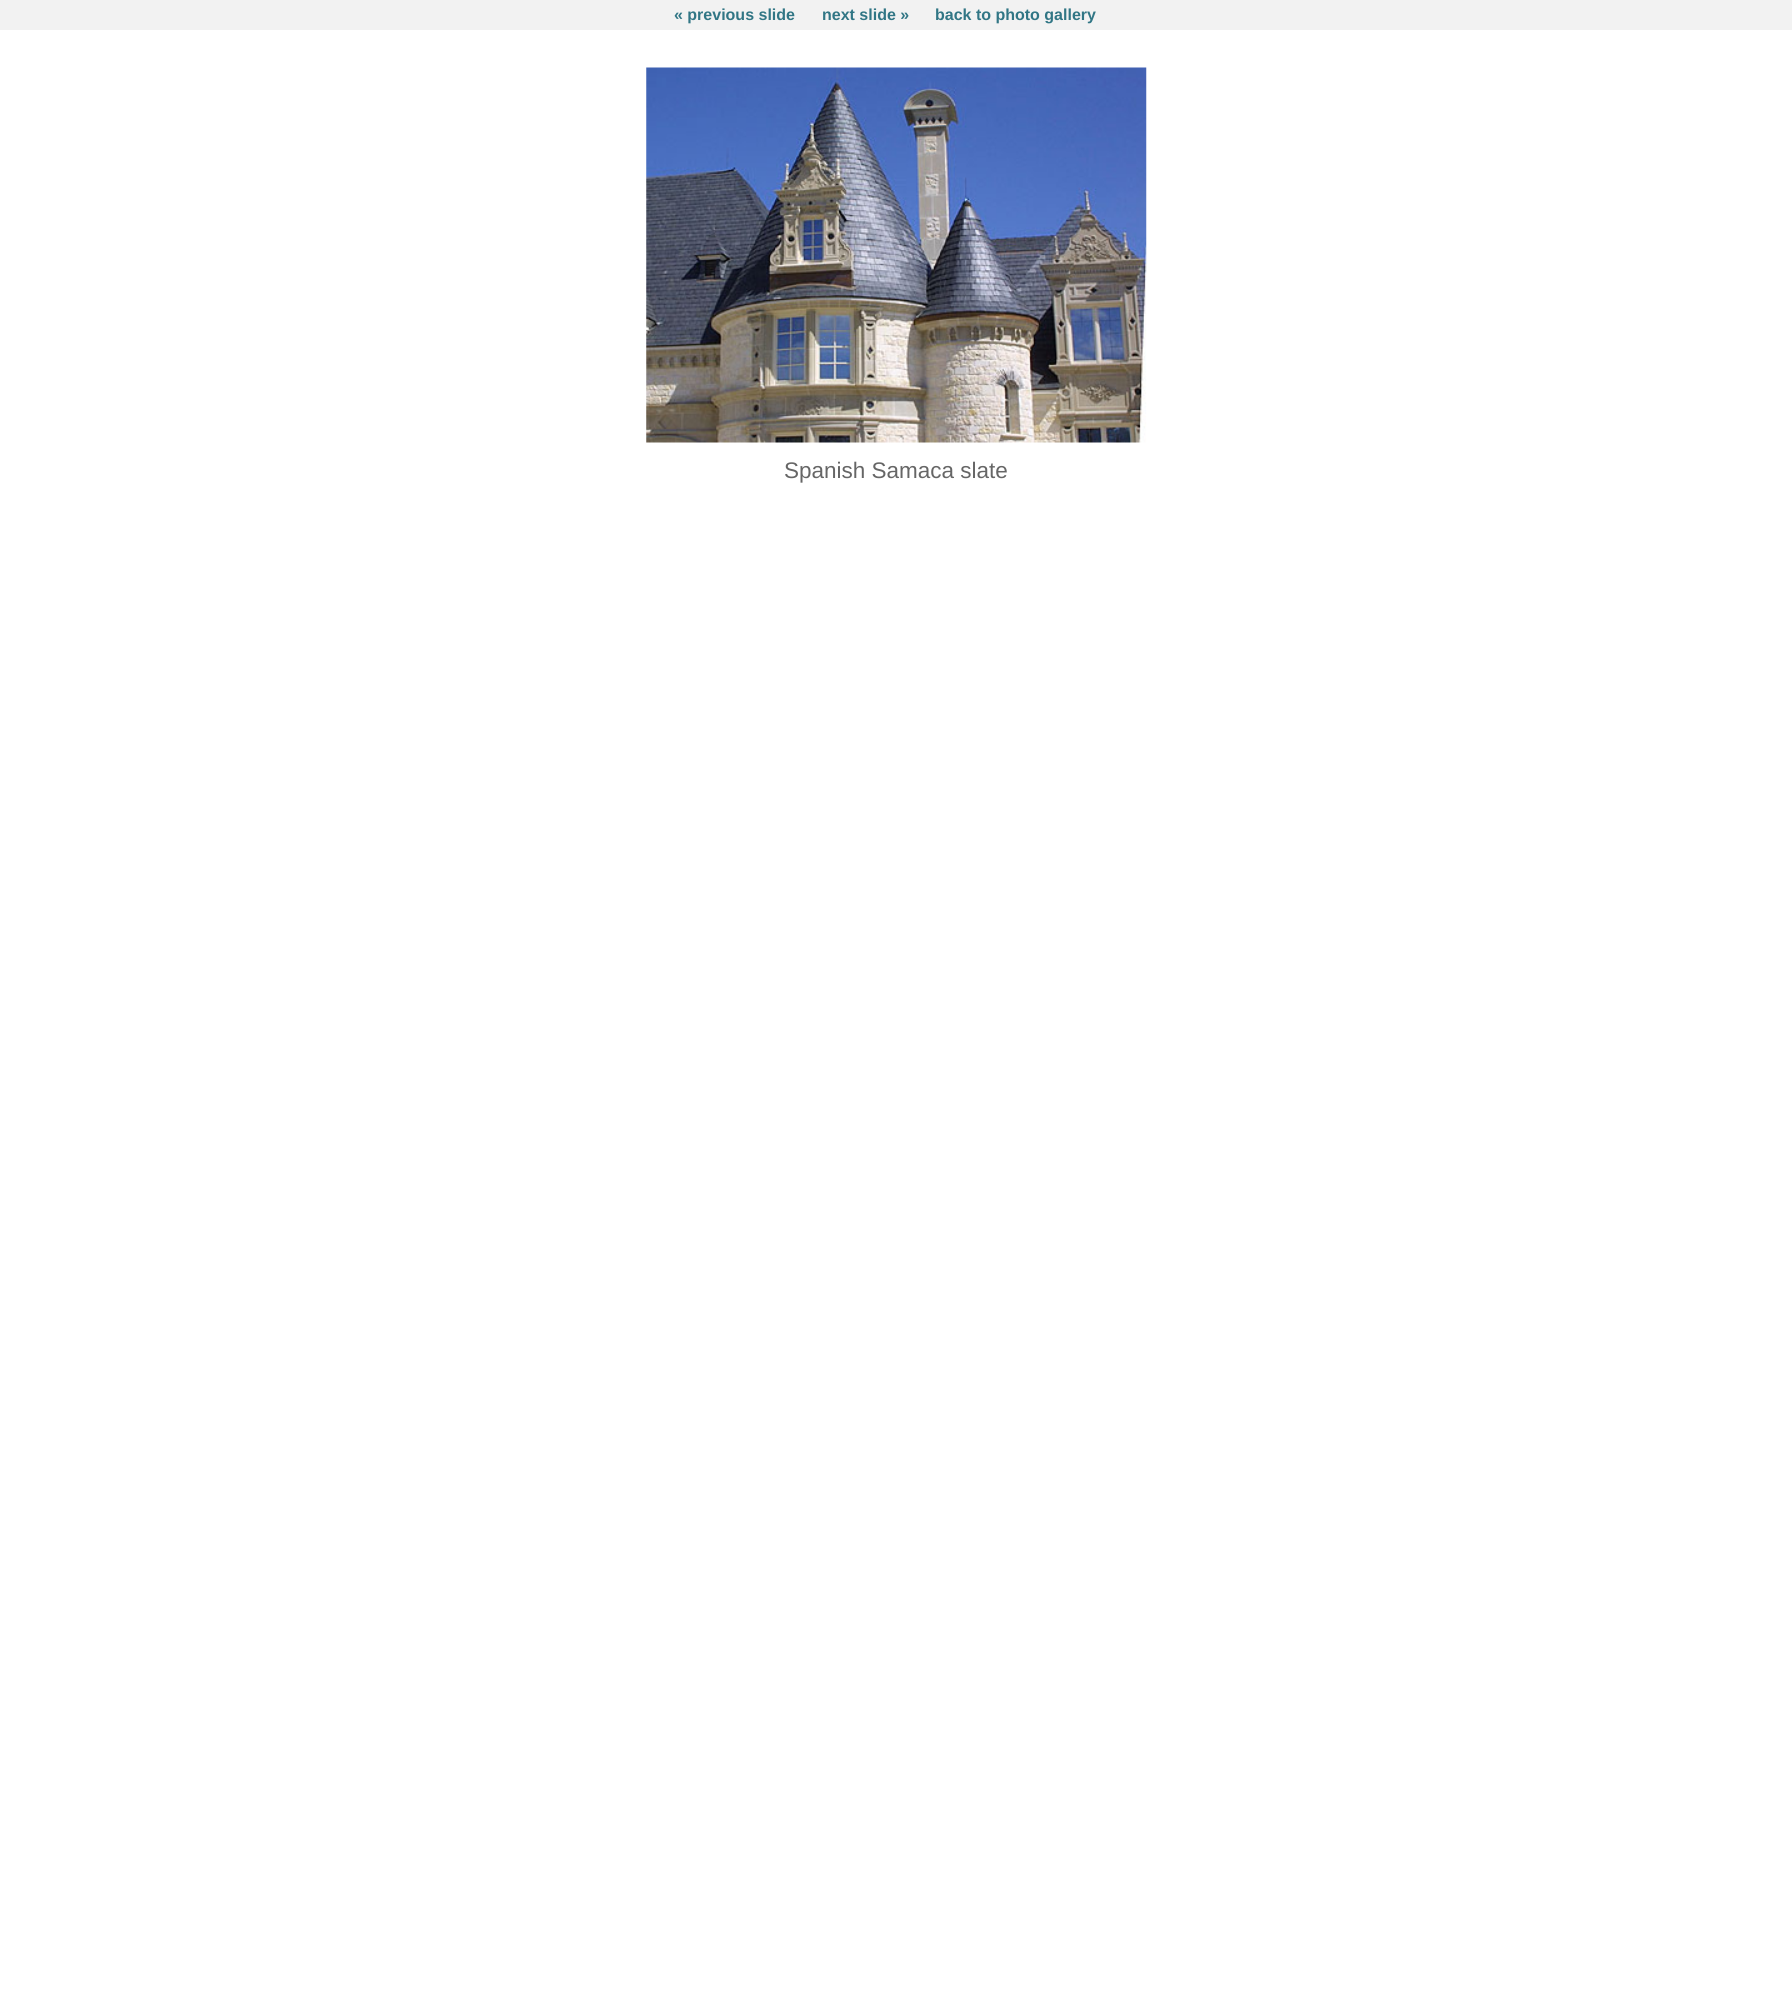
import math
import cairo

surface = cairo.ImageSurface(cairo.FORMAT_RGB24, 1792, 1994)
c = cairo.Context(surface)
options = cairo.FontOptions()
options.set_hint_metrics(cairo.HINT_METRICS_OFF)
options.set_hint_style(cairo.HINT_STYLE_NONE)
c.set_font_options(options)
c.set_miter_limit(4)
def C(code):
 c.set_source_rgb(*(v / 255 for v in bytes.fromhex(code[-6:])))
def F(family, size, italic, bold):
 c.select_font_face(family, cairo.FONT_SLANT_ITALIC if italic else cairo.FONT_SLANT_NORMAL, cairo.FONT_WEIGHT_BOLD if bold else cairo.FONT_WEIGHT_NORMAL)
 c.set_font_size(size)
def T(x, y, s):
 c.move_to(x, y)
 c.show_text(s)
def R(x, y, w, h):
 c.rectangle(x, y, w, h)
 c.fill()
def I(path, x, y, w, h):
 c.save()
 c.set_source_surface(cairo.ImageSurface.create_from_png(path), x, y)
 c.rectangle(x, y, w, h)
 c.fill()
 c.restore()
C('ffffff')
c.paint()
C('f2f2f2')
R(0,0,1792,30)
F('Liberation Sans',16,0,1)
C('317685')
T(674,20,'« previous slide')
T(822,20,'next slide »')
T(935,20,'back to photo gallery')
I('1.png',646,67,501,376)
F('Liberation Sans',22.5,0,0)
C('666666')
T(784,478,'Spanish Samaca slate')
surface.write_to_png('o.png')
